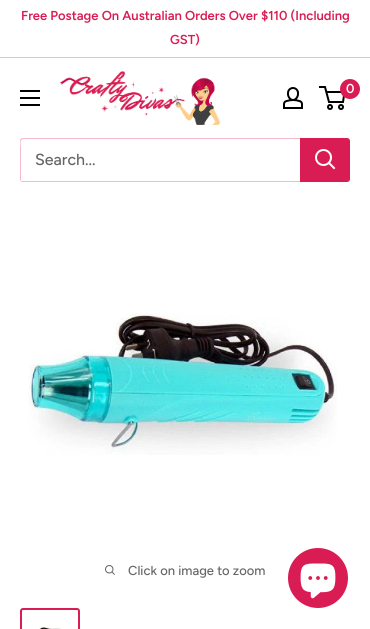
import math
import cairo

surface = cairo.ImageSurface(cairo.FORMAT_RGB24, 370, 629)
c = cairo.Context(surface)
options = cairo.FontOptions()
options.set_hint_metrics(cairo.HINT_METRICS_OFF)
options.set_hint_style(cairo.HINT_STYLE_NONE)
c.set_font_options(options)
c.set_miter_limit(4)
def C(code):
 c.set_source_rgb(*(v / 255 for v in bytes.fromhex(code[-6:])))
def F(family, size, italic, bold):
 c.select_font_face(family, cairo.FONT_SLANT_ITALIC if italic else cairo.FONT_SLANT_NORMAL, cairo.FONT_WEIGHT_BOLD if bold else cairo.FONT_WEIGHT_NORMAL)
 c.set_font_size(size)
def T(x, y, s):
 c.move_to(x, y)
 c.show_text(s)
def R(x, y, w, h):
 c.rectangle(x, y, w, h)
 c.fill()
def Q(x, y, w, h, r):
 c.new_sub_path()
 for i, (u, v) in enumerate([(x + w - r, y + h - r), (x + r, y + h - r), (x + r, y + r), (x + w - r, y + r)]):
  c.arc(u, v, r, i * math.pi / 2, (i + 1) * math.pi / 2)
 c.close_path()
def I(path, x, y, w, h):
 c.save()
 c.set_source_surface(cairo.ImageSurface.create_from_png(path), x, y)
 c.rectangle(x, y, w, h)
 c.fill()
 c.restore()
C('ffffff')
c.paint()
C('f4bbcb')
R(0,57,370,1)
F('Figtree SemiBold',13,0,0)
C('d91c53')
T(21,20,'Free Postage On Australian Orders Over $110 (Including')
T(170,44,'GST)')
I('1.png',60,71,160,54)
I('2.png',283,87,20,22)
c.arc(330,107,2,0,2 * math.pi)
C('000000')
c.stroke()
c.arc(341,107,2,0,2 * math.pi)
c.stroke()
c.new_path()
c.move_to(326.5,92)
c.line_to(344.5,92)
c.line_to(343,102)
c.line_to(329,102)
c.line_to(325,87)
c.line_to(319,87)
c.stroke()
C('d91c53')
c.arc(350,89,10,0,2 * math.pi)
c.fill()
C('ffffff')
T(346,93,'0')
I('3.png',20,90,20,16)
C('f4bbcb')
c.new_path()
c.move_to(21,181)
c.curve_to(21,182,22,182,23,182)
c.line_to(347,182)
c.curve_to(349,182,350,181,350,179)
c.line_to(350,141)
c.curve_to(350,140,350,139,349,139)
c.line_to(349,172)
c.curve_to(349,174,351,181,346,181)
c.close_path()
c.fill()
c.new_path()
c.move_to(24,139)
c.line_to(349,139)
c.curve_to(349,138,348,138,347,138)
c.line_to(23,138)
c.curve_to(21,138,20,139,20,141)
c.line_to(20,179)
c.curve_to(20,180,20,181,21,181)
c.line_to(21,148)
c.curve_to(21,146,19,139,24,139)
c.close_path()
c.fill()
F('Figtree Medium',16,0,0)
C('666666')
T(35,165,'Search...')
C('d91c53')
c.new_path()
c.move_to(300,138)
c.line_to(347,138)
c.curve_to(348.5,138,350,139.5,350,141)
c.line_to(350,179)
c.curve_to(350,180.5,348.5,182,347,182)
c.line_to(300,182)
c.close_path()
c.fill()
c.new_path()
c.move_to(334,168)
c.line_to(329,163)
C('ffffff')
c.set_line_cap(cairo.LINE_CAP_SQUARE)
c.stroke()
c.arc(323.5,157.5,7.5,0,2 * math.pi)
c.set_line_cap(cairo.LINE_CAP_BUTT)
c.stroke()
I('4.png',28,313,309,142)
I('5.png',105,565,10,10)
F('Figtree Medium',13,0,0)
C('666666')
T(128,575,'Click on image to zoom')
Q(21,609,58,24,2)
C('d91c53')
c.stroke()
I('6.png',39,627,23,2)
c.arc(318,578,30,0,2 * math.pi)
c.fill()
I('7.png',300,563,36,36)
surface.write_to_png('o.png')
